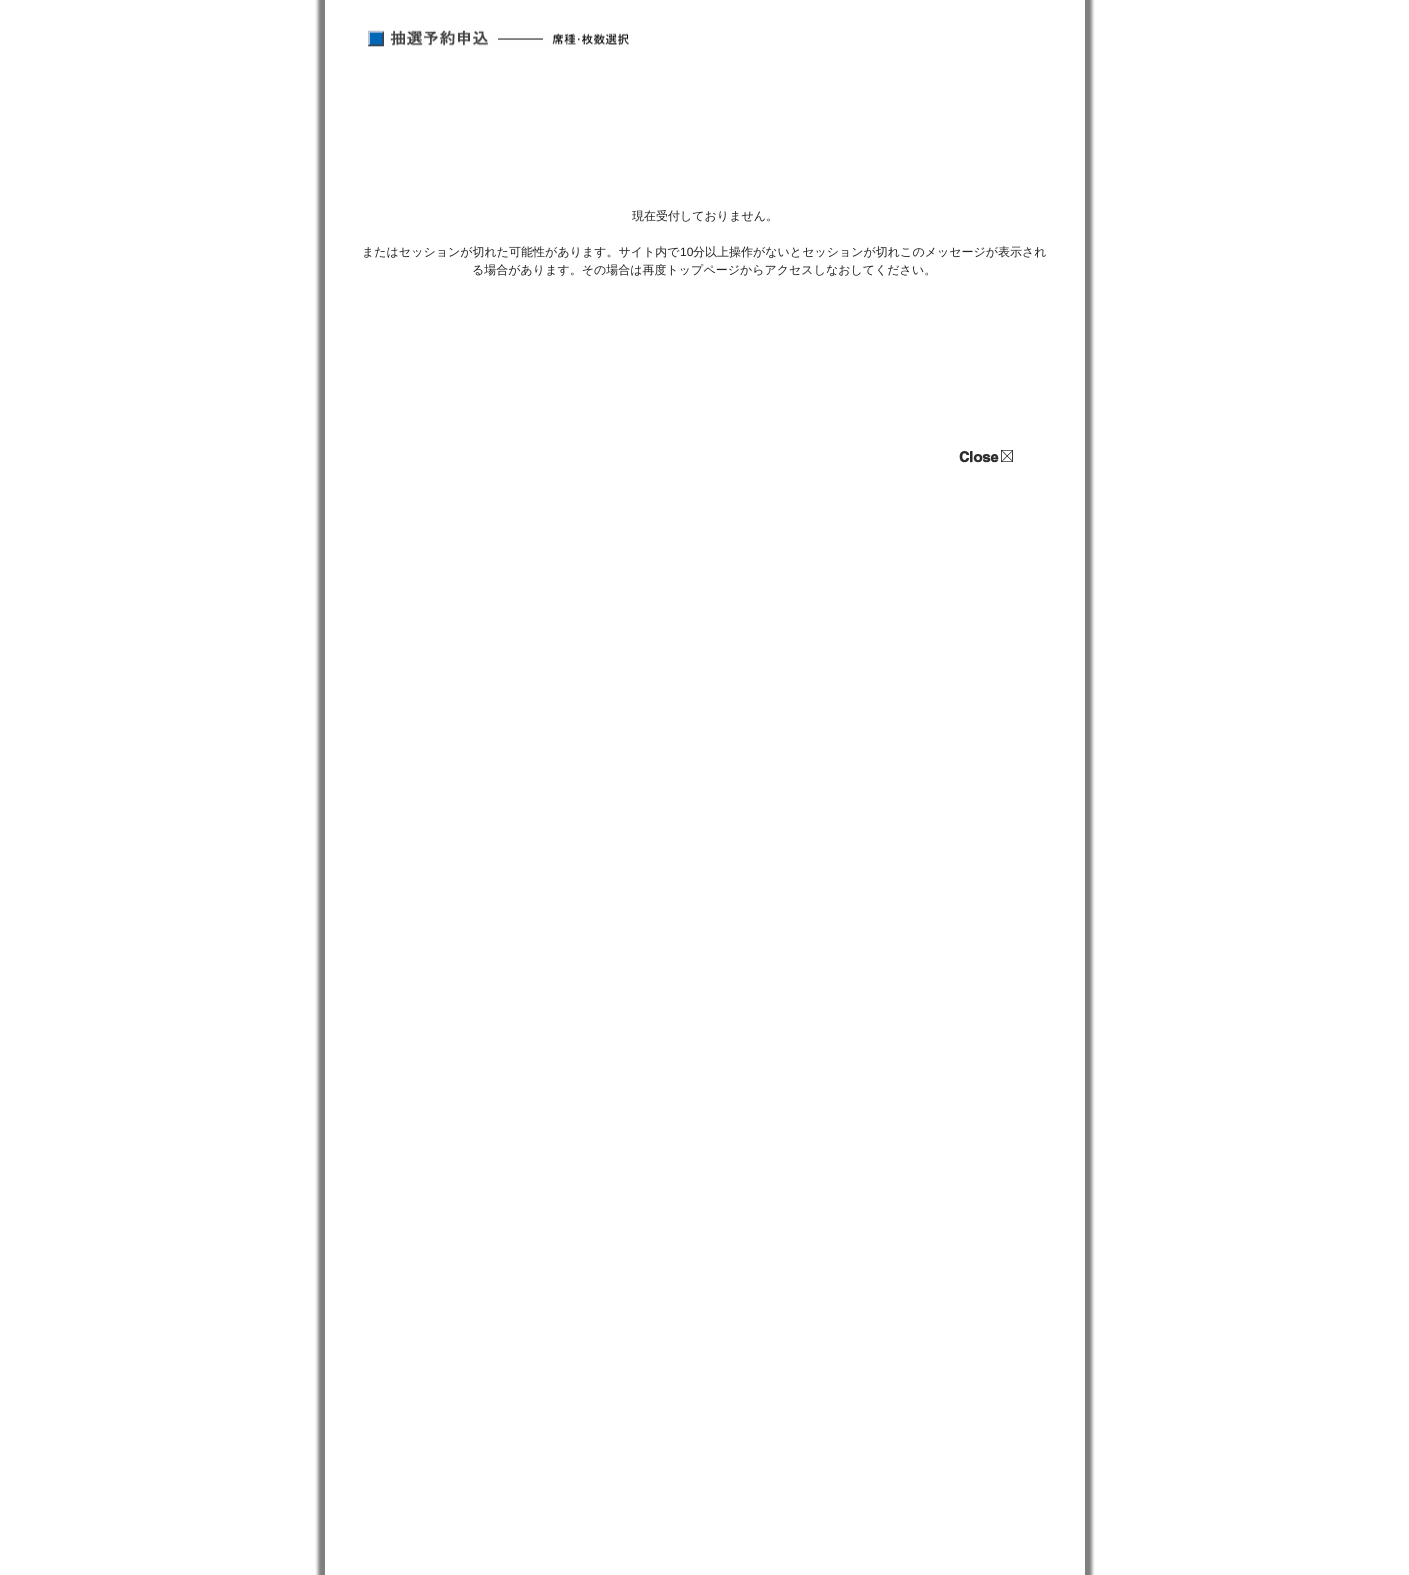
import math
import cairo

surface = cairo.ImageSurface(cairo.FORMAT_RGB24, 1409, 1575)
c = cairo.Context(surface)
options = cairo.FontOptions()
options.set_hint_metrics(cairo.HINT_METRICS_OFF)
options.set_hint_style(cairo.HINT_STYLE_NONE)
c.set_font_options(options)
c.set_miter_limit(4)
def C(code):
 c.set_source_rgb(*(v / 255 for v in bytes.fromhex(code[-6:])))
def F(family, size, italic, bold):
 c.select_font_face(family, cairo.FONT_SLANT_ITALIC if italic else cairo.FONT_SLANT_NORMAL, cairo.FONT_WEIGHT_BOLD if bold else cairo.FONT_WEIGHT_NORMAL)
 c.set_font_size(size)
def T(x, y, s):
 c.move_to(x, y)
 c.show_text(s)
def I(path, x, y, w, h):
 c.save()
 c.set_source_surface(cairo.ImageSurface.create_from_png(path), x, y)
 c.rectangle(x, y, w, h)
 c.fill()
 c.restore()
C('ffffff')
c.paint()
I('1.png',315,0,780,1575)
I('2.png',368,30,261,17)
F('WenQuanYi Zen Hei Medium',12,0,0)
C('222222')
T(632,220,'現在受付しておりません。')
T(362,256,'またはセッションが切れた可能性があります。サイト内で')
F('Liberation Sans',12,0,0)
T(680,256,'10')
F('WenQuanYi Zen Hei Medium',12,0,0)
T(693,256,'分以上操作がないとセッションが切れこのメッセージが表示され')
T(472,274,'る場合があります。その場合は再度トップページからアクセスしなおしてください。')
I('3.png',959,450,54,13)
surface.write_to_png('o.png')
